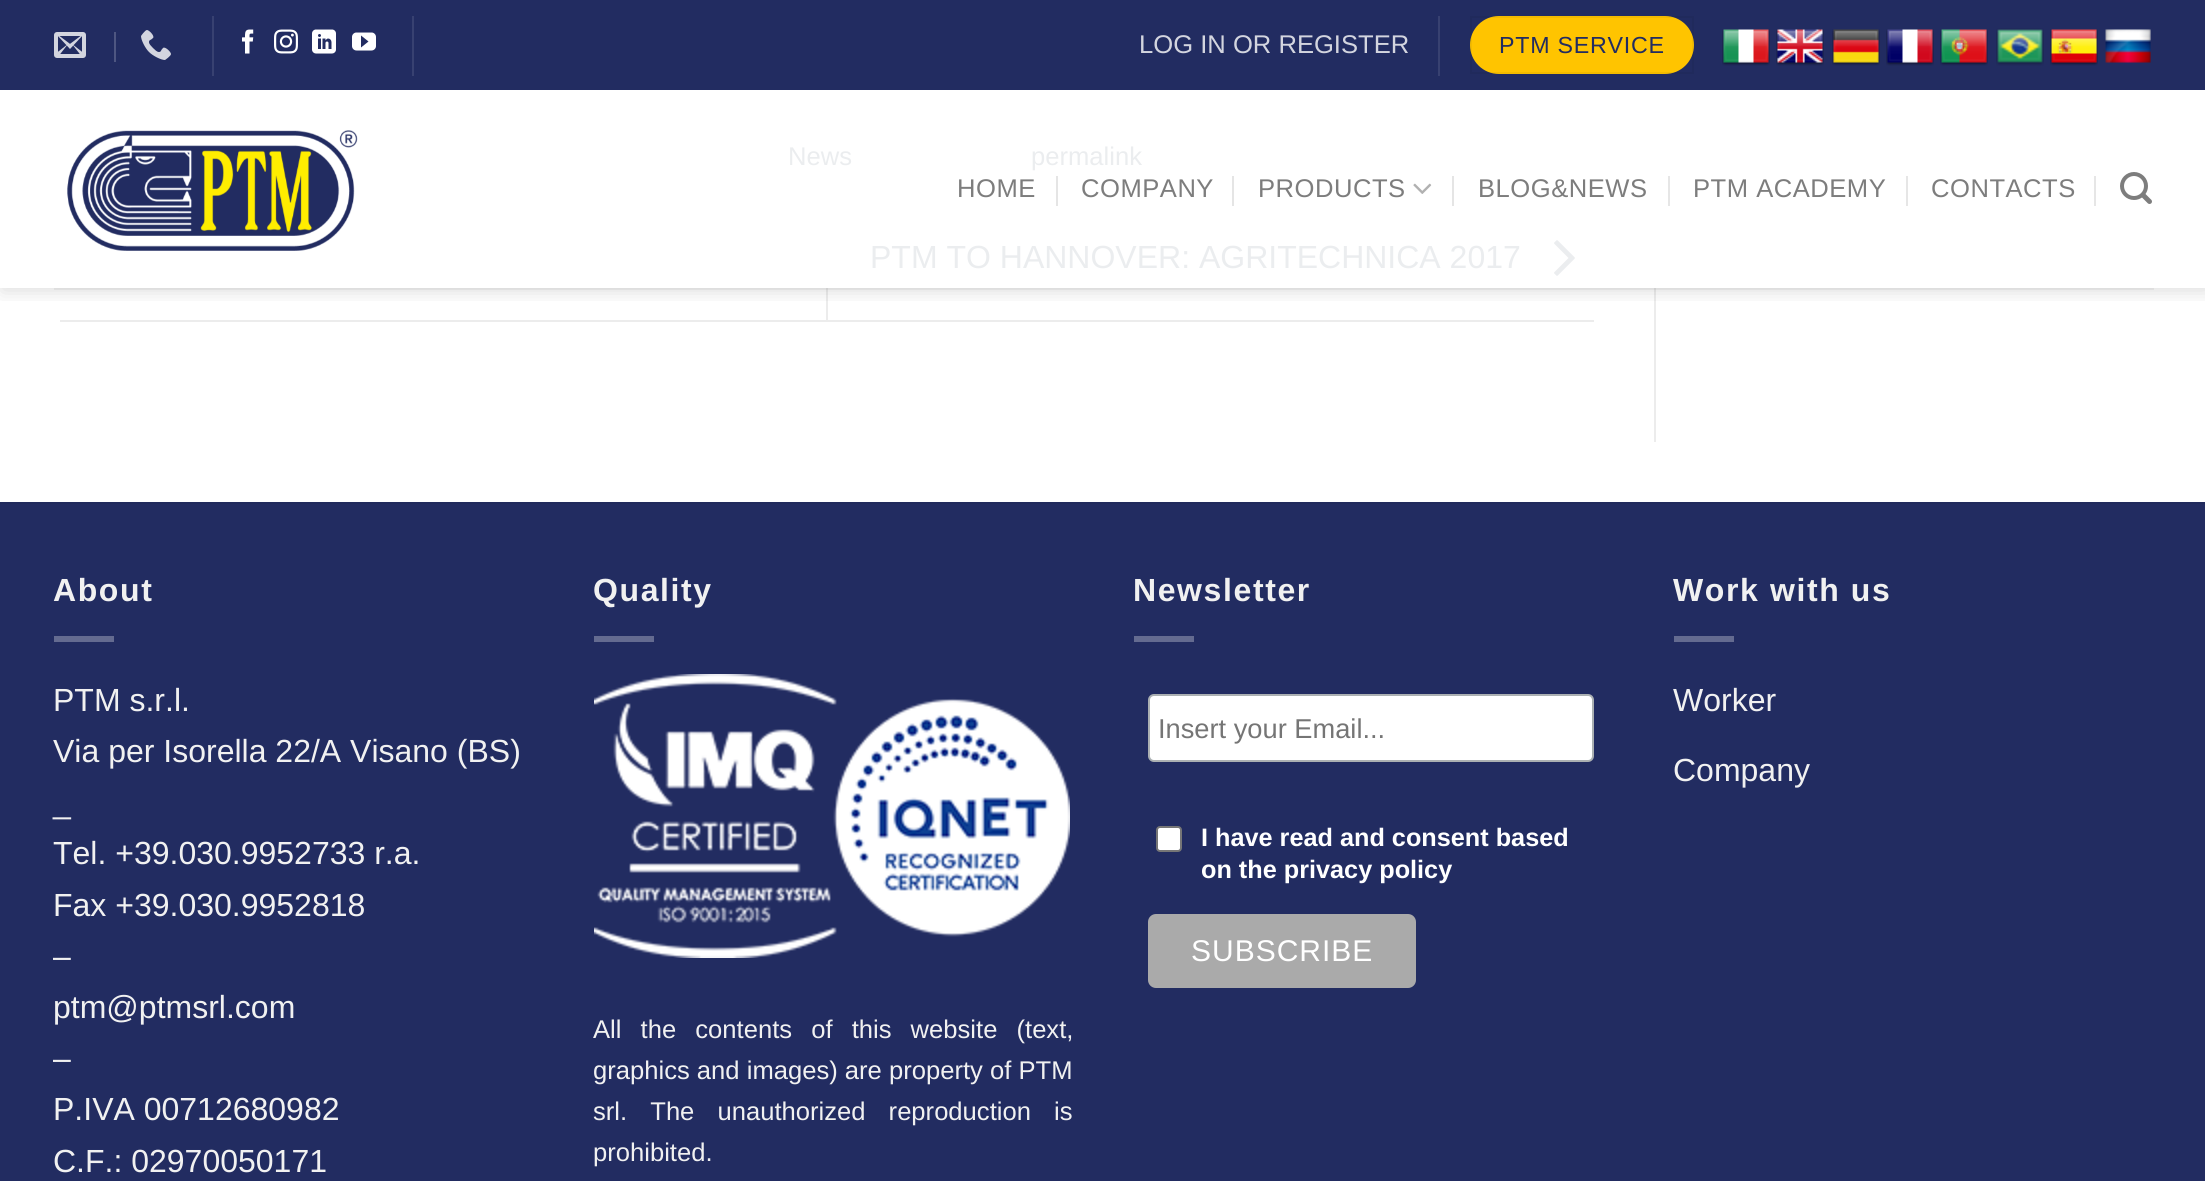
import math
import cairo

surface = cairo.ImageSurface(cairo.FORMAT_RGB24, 2205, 1181)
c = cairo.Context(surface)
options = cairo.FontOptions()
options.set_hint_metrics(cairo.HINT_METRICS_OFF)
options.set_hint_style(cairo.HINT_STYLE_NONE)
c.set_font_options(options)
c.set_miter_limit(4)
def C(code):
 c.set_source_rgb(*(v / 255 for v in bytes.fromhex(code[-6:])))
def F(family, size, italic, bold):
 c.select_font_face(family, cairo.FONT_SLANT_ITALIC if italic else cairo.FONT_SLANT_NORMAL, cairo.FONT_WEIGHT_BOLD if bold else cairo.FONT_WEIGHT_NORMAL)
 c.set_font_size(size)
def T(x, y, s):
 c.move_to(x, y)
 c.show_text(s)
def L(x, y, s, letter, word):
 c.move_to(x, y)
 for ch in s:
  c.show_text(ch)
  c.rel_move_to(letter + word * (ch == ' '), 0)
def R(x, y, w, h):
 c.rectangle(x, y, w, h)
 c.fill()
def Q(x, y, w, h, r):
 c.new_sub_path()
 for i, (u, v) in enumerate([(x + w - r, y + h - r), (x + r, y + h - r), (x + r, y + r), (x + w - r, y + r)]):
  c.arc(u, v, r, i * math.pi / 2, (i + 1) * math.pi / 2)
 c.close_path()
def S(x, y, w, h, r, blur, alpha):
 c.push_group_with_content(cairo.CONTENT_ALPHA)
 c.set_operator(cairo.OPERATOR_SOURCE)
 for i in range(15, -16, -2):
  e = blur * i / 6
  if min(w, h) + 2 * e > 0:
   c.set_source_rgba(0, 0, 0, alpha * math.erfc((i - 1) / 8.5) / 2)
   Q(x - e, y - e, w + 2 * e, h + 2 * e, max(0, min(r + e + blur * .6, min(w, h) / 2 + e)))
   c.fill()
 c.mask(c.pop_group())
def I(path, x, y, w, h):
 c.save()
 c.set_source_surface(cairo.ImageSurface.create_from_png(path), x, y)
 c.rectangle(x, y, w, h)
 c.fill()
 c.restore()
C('ffffff')
c.paint()
C('ececec')
R(60,320,1534,2)
R(826,288,2,32)
I('18.png',1554,240,21,36)
R(1654,288,2,154)
c.save()
c.rectangle(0,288,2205,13)
c.clip()
C('000000')
S(2,2,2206,288,0,10,.15)
c.restore()
C('222c61')
R(0,0,2205,90)
I('1.png',54,32,32,26)
C('4e5681')
R(114,32,2,30)
I('2.png',141,30,30,30)
C('384171')
R(212,16,2,60)
I('3.png',242,29,12,25)
I('4.png',274,29,24,25)
I('5.png',312,29,24,25)
I('6.png',352,32,24,19)
R(412,16,2,60)
F('Liberation Sans',25.6,0,0)
C('d3d5df')
T(1139,53,'LOG IN OR REGISTER')
C('384171')
R(1438,16,2,60)
C('ffc400')
Q(1470,16,224,58,29)
c.fill()
c.rectangle(1471,17,222,56)
c.set_source_rgba(0,0,0,0.05)
c.stroke()
F('Liberation Sans',23.25,0,0)
C('222c61')
L(1499,53,'PTM SERVICE',.75,0)
I('7.png',1722,29,48,37)
I('8.png',1776,29,48,37)
I('9.png',1832,29,48,37)
I('10.png',1886,29,48,37)
I('11.png',1940,29,48,37)
I('12.png',1996,28,48,38)
I('13.png',2050,29,48,37)
I('14.png',2105,29,46,34)
I('15.png',67,130,291,121)
F('Liberation Sans',25.6,0,0)
C('7d7d7d')
L(957,197,'HOME',.5,0)
C('e5e5e5')
R(1056,176,2,30)
C('7d7d7d')
L(1081,197,'COMPANY',.5,0)
C('e5e5e5')
R(1232,176,2,30)
C('7d7d7d')
L(1258,197,'PRODUCTS',.5,0)
I('16.png',1413,183,19,11)
C('e5e5e5')
R(1452,176,2,30)
C('7d7d7d')
L(1478,197,'BLOG&NEWS',.5,0)
C('e6e6e6')
R(1668,176,2,30)
C('7d7d7d')
L(1693,197,'PTM ACADEMY',.5,0)
C('e6e6e6')
R(1906,176,2,30)
C('7d7d7d')
L(1931,197,'CONTACTS',.5,0)
C('e6e6e6')
R(2094,176,2,30)
I('17.png',2120,172,32,32)
c.set_source_rgba(0.467,0.467,0.467,0.1)
R(54,288,2100,2)
C('ebedef')
T(788,165,'News')
T(1031,165,'permalink')
F('Liberation Sans',32,0,0)
T(870,268,'PTM TO HANNOVER: AGRITECHNICA 2017')
C('222c61')
R(0,504,2205,677)
C('202a5c')
R(0,502,2205,2)
F('Liberation Sans',32,0,1)
C('f1f1f1')
L(53,601,'About',1.6,0)
C('646b90')
R(54,636,60,6)
F('Liberation Sans',32,0,0)
C('f1f1f1')
T(53,711,'PTM s.r.l.')
T(53,762,'Via per Isorella 22/A Visano (BS)')
T(53,813,'_')
T(53,864,'Tel. +39.030.9952733 r.a.')
T(53,916,'Fax +39.030.9952818')
T(53,967,'–')
T(53,1018,'ptm@ptmsrl.com')
T(53,1069,'–')
T(53,1120,'P.IVA 00712680982')
T(53,1172,'C.F.: 02970050171')
F('Liberation Sans',32,0,1)
L(593,601,'Quality',1.6,0)
C('646b90')
R(594,636,60,6)
I('19.png',594,674,476,284)
F('Liberation Sans',25.6,0,0)
C('f1f1f1')
L(593,1038,'All the contents of this website (text,',0,12)
T(593,1079,'graphics and images) are property of PTM')
L(593,1120,'srl. The unauthorized reproduction is',0,16)
T(593,1161,'prohibited.')
F('Liberation Sans',32,0,1)
L(1133,601,'Newsletter',1.6,0)
C('646b90')
R(1134,636,60,6)
C('ffffff')
Q(1149,695,444,66,5)
c.fill_preserve()
C('abb0b2')
c.stroke()
F('Liberation Sans',27.25,0,0)
C('757575')
T(1158,738,'Insert your Email...')
C('ffffff')
Q(1157,827,24,24,3)
c.fill_preserve()
C('767676')
c.stroke()
F('Liberation Sans',25.25,0,1)
C('ffffff')
T(1201,846,'I have read and consent based')
T(1201,878,'on the privacy policy')
C('aaaaaa')
Q(1148,914,268,74,8)
c.fill()
F('Liberation Sans',30,0,0)
C('ffffff')
L(1191,961,'SUBSCRIBE',1,0)
F('Liberation Sans',32,0,1)
C('f1f1f1')
L(1673,601,'Work with us',1.6,0)
C('646b90')
R(1674,636,60,6)
F('Liberation Sans',32,0,0)
C('f1f1f1')
T(1673,711,'Worker')
T(1673,781,'Company')
surface.write_to_png('o.png')
